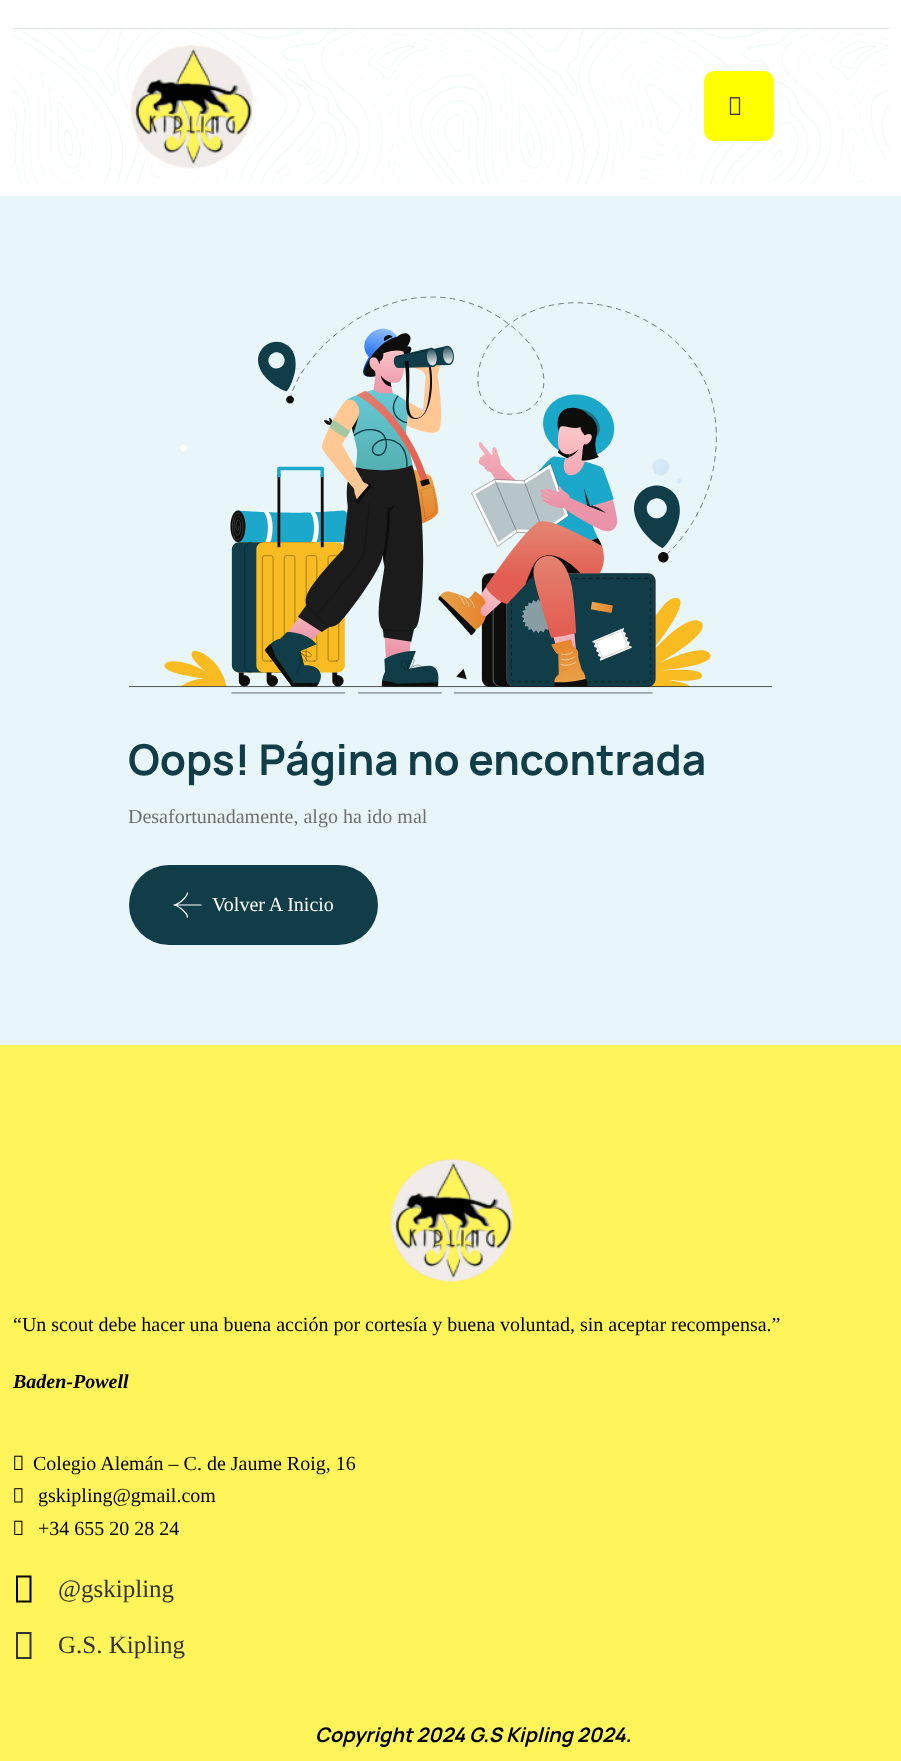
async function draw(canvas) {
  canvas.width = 901
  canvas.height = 1761
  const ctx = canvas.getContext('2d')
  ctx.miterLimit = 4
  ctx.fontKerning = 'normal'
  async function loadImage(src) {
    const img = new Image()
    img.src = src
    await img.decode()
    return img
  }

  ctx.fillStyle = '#fff'
  ctx.fillRect(0, 0, 901, 1761)
  ctx.fillStyle = '#e1e4e5'
  ctx.fillRect(13, 28, 876, 1)
  ctx.drawImage(await loadImage('image0.png'), 12, 29, 877, 155)
  ctx.drawImage(await loadImage('image1.png'), 130, 45, 124, 124)
  ctx.fillStyle = '#ff0'
  ctx.beginPath()
  ctx.roundRect(704, 71, 70, 70, 10)
  ctx.fill()
  ctx.drawImage(await loadImage('image2.png'), 729, 97, 12, 18)
  ctx.fillStyle = '#e9f6f9'
  ctx.fillRect(0, 196, 901, 849)
  ctx.drawImage(await loadImage('image3.png'), 129, 296, 644, 398)
  ctx.font = 'bold 42.5px Manrope'
  ctx.fillStyle = '#113d48'
  ctx.fillText('Oops! Página no encontrada', 128, 775)
  ctx.font = '20px Liberation Serif'
  ctx.fillStyle = '#6e7070'
  ctx.fillText('Desafortunadamente, algo ha ido mal', 128, 823)
  ctx.fillStyle = '#113d48'
  ctx.beginPath()
  ctx.roundRect(129, 865, 249, 80, 40)
  ctx.fill()
  ctx.beginPath()
  ctx.moveTo(187.5, 892.5)
  ctx.bezierCurveTo(187.5, 897, 178, 905, 173.5, 905)
  ctx.moveTo(187.5, 917.5)
  ctx.bezierCurveTo(187.5, 913, 178, 905, 173.5, 905)
  ctx.moveTo(173.5, 905)
  ctx.lineTo(201.5, 905)
  ctx.strokeStyle = '#fff'
  ctx.lineWidth = 1.2
  ctx.stroke()
  ctx.fillStyle = '#fff'
  ctx.fillText('Volver A Inicio', 212, 911)
  ctx.fillStyle = '#fff45a'
  ctx.fillRect(0, 1045, 901, 716)
  ctx.drawImage(await loadImage('image4.png'), 390, 1158, 124, 125)
  ctx.fillStyle = '#000'
  ctx.fillText('“Un scout debe hacer una buena acción por cortesía y buena voluntad, sin aceptar recompensa.”', 13, 1331)
  ctx.font = 'italic bold 20px Liberation Serif'
  ctx.fillText('Baden-Powell', 13, 1388)
  ctx.drawImage(await loadImage('image5.png'), 14, 1455, 9, 15)
  ctx.font = '20px Liberation Serif'
  ctx.fillText('Colegio Alemán – C. de Jaume Roig, 16', 33, 1470)
  ctx.drawImage(await loadImage('image6.png'), 14, 1488, 9, 15)
  ctx.fillText('gskipling@gmail.com', 38, 1502)
  ctx.drawImage(await loadImage('image5.png'), 14, 1520, 9, 15)
  ctx.fillText('+34 655 20 28 24', 38, 1535)
  ctx.beginPath()
  ctx.moveTo(16, 1602.5)
  ctx.lineTo(16, 1575.5)
  ctx.lineTo(31.5, 1575.5)
  ctx.lineTo(31.5, 1602.5)
  ctx.closePath()
  ctx.moveTo(18, 1600.5)
  ctx.lineTo(29.5, 1600.5)
  ctx.lineTo(29.5, 1577.5)
  ctx.lineTo(18, 1577.5)
  ctx.closePath()
  ctx.fill()
  ctx.font = '25px Liberation Serif'
  ctx.fillStyle = '#333'
  ctx.fillText('@gskipling', 58, 1597)
  ctx.beginPath()
  ctx.moveTo(16, 1659)
  ctx.lineTo(16, 1632)
  ctx.lineTo(31.5, 1632)
  ctx.lineTo(31.5, 1659)
  ctx.closePath()
  ctx.moveTo(18, 1657)
  ctx.lineTo(29.5, 1657)
  ctx.lineTo(29.5, 1634)
  ctx.lineTo(18, 1634)
  ctx.closePath()
  ctx.fill()
  ctx.fillText('G.S. Kipling', 58, 1653)
  ctx.font = 'italic bold 20px Manrope'
  ctx.fillStyle = '#000'
  ctx.fillText('Copyright 2024 G.S Kipling 2024.', 315, 1742)
}

draw(document.querySelector('canvas'))
